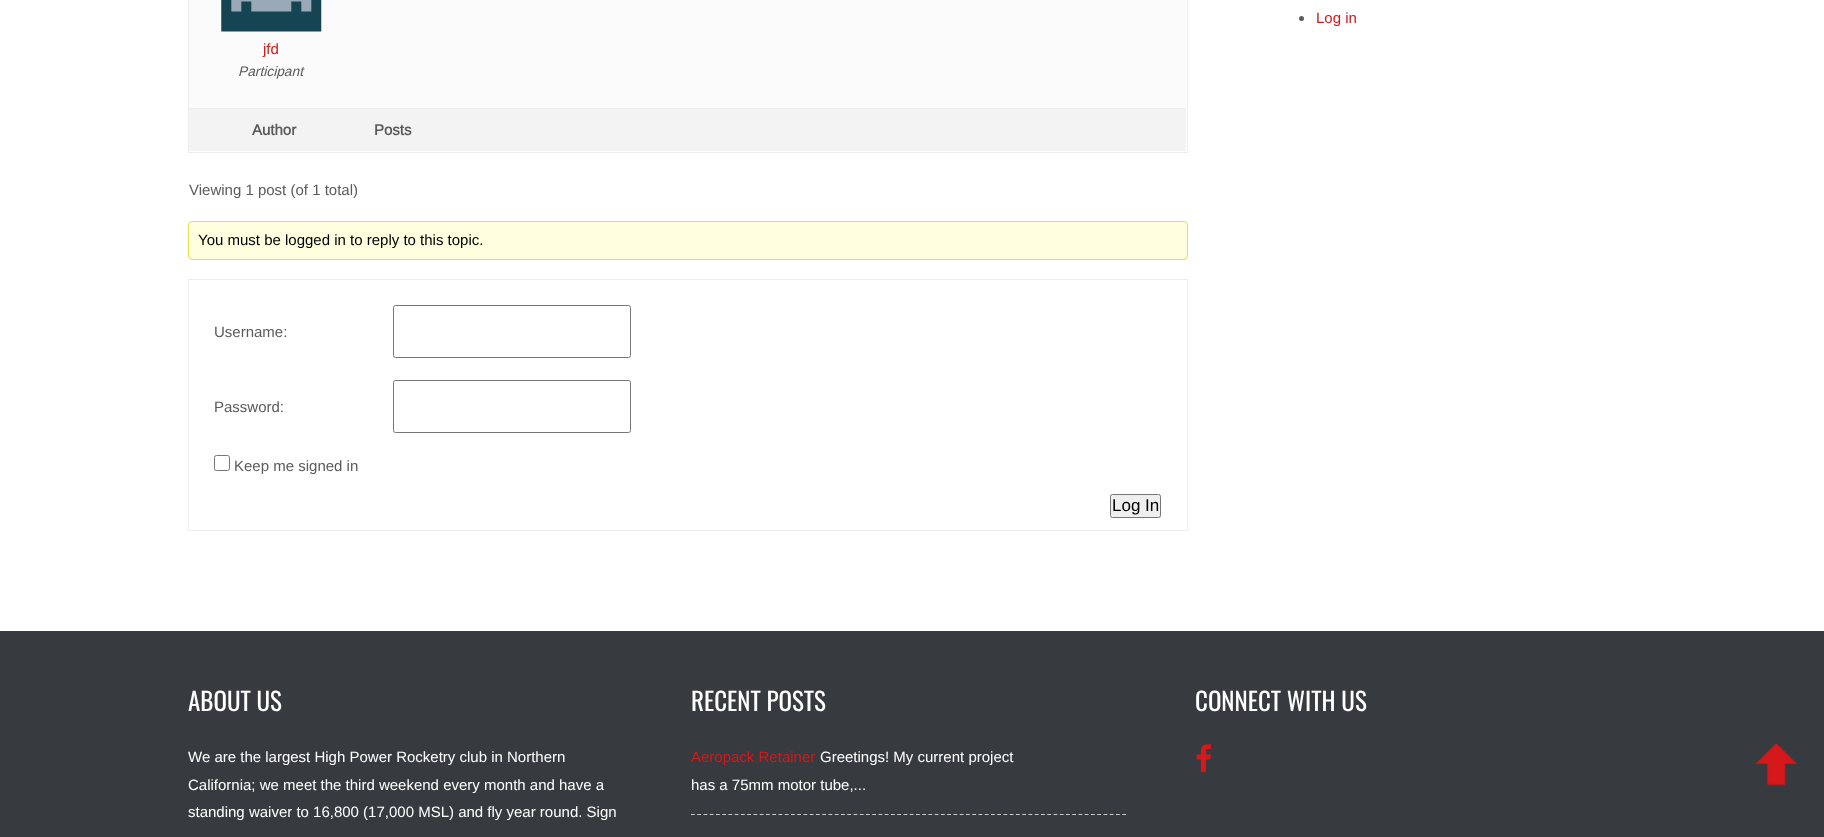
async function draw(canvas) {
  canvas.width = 1824
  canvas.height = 837
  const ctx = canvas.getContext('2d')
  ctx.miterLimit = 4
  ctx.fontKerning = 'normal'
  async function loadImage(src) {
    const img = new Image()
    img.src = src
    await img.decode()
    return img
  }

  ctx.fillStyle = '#fff'
  ctx.fillRect(0, 0, 1824, 837)
  ctx.fillStyle = '#5b5b5b'
  ctx.beginPath()
  ctx.arc(1301.5, 18.5, 2.5, 0, 2 * Math.PI)
  ctx.fill()
  ctx.font = '15px Arimo'
  ctx.fillStyle = '#d6181a'
  ctx.fillText('Log in', 1316, 23)
  ctx.strokeStyle = '#eee'
  ctx.strokeRect(188.5, -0.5, 999, 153)
  ctx.fillStyle = '#fbfbfb'
  ctx.fillRect(189, 0, 997, 108)
  ctx.drawImage(await loadImage('image0.png'), 221, 0, 101, 32)
  ctx.fillStyle = '#d6181a'
  ctx.fillText('jfd', 263, 54)
  ctx.font = 'italic 13.75px Arimo'
  ctx.fillStyle = '#5b5b5b'
  ctx.fillText('Participant', 238, 76)
  ctx.fillStyle = '#f3f3f3'
  ctx.fillRect(189, 109, 997, 42)
  ctx.fillStyle = '#eee'
  ctx.fillRect(189, 108, 997, 1)
  ctx.font = 'bold 15px Arimo'
  ctx.fillStyle = '#5b5b5b'
  ctx.fillText('Author', 252, 135)
  ctx.fillText('Posts', 374, 135)
  ctx.font = '15px Arimo'
  ctx.fillText('Viewing 1 post (of 1 total)', 189, 195)
  ctx.fillStyle = '#ffffe0'
  ctx.beginPath()
  ctx.roundRect(188.5, 221.5, 999, 38, 3.5)
  ctx.fill()
  ctx.strokeStyle = '#e6db55'
  ctx.stroke()
  ctx.fillStyle = '#000'
  ctx.fillText('You must be logged in to reply to this topic.', 198, 245)
  ctx.strokeStyle = '#eee'
  ctx.strokeRect(188.5, 279.5, 999, 251)
  ctx.fillStyle = '#5b5b5b'
  ctx.fillText('Username:', 214, 337)
  ctx.beginPath()
  ctx.roundRect(393.5, 305.5, 237, 52, 2)
  ctx.strokeStyle = '#767676'
  ctx.stroke()
  ctx.fillText('Password:', 214, 412)
  ctx.beginPath()
  ctx.roundRect(393.5, 380.5, 237, 52, 2)
  ctx.stroke()
  ctx.beginPath()
  ctx.roundRect(214.5, 455.5, 15, 15, 2)
  ctx.stroke()
  ctx.fillText('Keep me signed in', 234, 471)
  ctx.fillStyle = '#efefef'
  ctx.beginPath()
  ctx.roundRect(1110.5, 494.5, 50, 23, 2)
  ctx.fill()
  ctx.stroke()
  ctx.font = '17px Liberation Sans'
  ctx.fillStyle = '#000'
  ctx.fillText('Log In', 1112, 511)
  ctx.fillStyle = '#373a3f'
  ctx.fillRect(0, 631, 1824, 206)
  ctx.font = '25px Oswald'
  ctx.fillStyle = '#fff'
  ctx.fillText('ABOUT US', 188, 711)
  ctx.font = '15px Arimo'
  ctx.fillText('We are the largest High Power Rocketry club in Northern', 188, 762)
  ctx.fillText('California; we meet the third weekend every month and have a', 188, 790)
  ctx.fillText('standing waiver to 16,800 (17,000 MSL) and fly year round. Sign', 188, 817)
  ctx.font = '25px Oswald'
  ctx.fillText('RECENT POSTS', 691, 711)
  ctx.beginPath()
  ctx.moveTo(691, 814.5)
  ctx.lineTo(1126, 814.5)
  ctx.strokeStyle = '#ccc'
  ctx.lineWidth = 1.2
  ctx.setLineDash([3.75, 2.5])
  ctx.stroke()
  ctx.font = '15px Arimo'
  ctx.fillStyle = '#d6181a'
  ctx.fillText('Aeropack Retainer', 691, 762)
  ctx.fillStyle = '#fff'
  ctx.fillText('Greetings! My current project', 820, 762)
  ctx.fillText('has a 75mm motor tube,...', 691, 790)
  ctx.font = '25px Oswald'
  ctx.fillText('CONNECT WITH US', 1195, 711)
  ctx.drawImage(await loadImage('image1.png'), 1196, 744, 16, 29)
  ctx.drawImage(await loadImage('image2.png'), 1756, 743, 42, 43)
}

draw(document.querySelector('canvas'))
